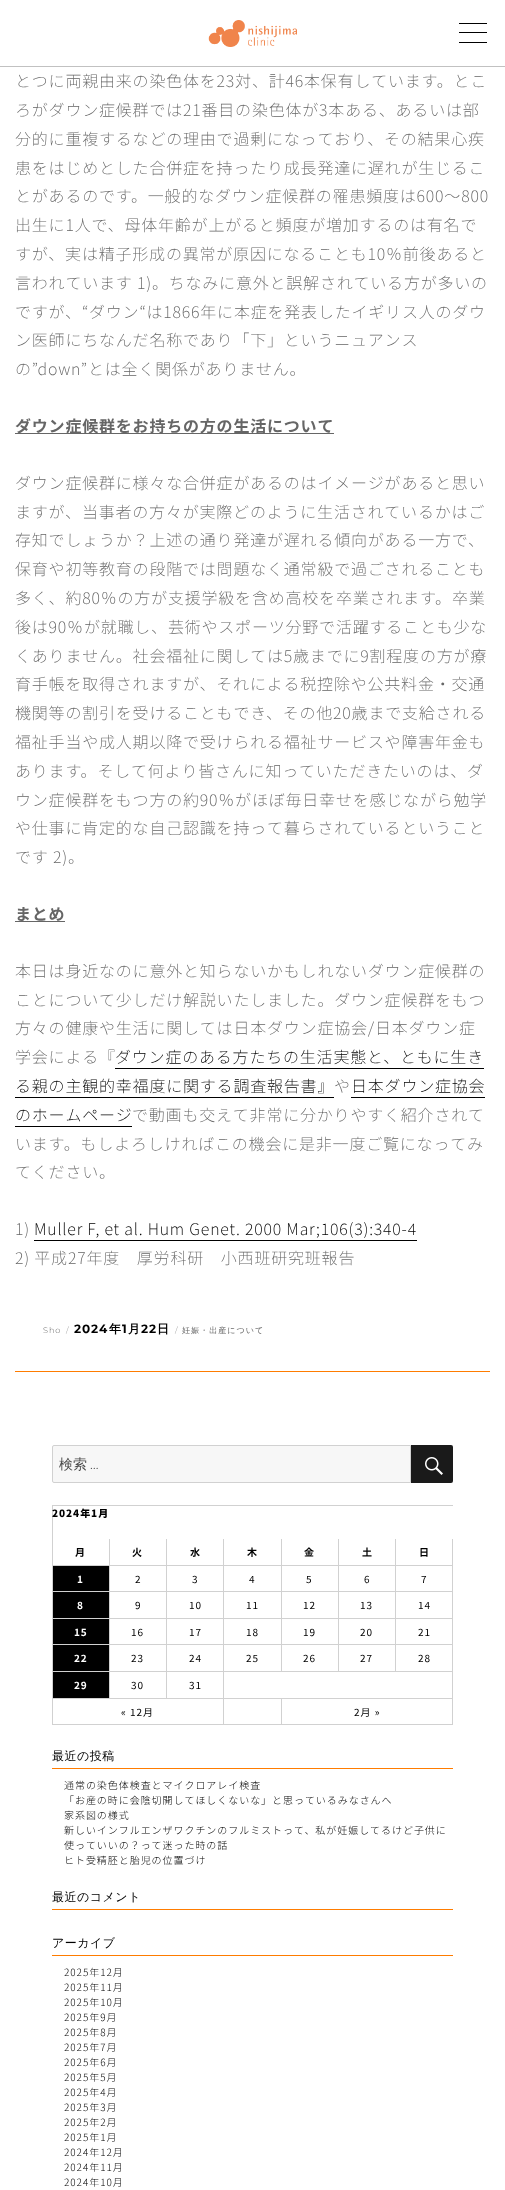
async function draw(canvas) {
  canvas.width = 505
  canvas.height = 2190
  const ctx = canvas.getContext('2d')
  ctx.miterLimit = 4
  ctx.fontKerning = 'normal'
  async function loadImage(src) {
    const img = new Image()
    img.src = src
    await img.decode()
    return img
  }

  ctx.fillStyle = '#fff'
  ctx.fillRect(0, 0, 505, 2190)
  ctx.fillStyle = '#c1c1c1'
  ctx.fillRect(0, 66, 505, 1)
  ctx.drawImage(await loadImage('image0.png'), 208, 20, 89, 27)
  ctx.fillStyle = '#000'
  ctx.fillRect(459, 23, 28, 1)
  ctx.fillRect(459, 32, 28, 1)
  ctx.fillRect(459, 42, 28, 1)
  ctx.letterSpacing = '0.8px'
  ctx.font = '200 16px Noto Sans JP'
  ctx.fillStyle = '#666'
  ctx.fillText('とつに両親由来の染色体を23対、計46本保有しています。とこ', 15, 87)
  ctx.fillText('ろがダウン症候群では21番目の染色体が3本ある、あるいは部', 15, 116)
  ctx.fillText('分的に重複するなどの理由で過剰になっており、その結果心疾', 15, 145)
  ctx.fillText('患をはじめとした合併症を持ったり成長発達に遅れが生じるこ', 15, 174)
  ctx.fillText('とがあるのです。一般的なダウン症候群の罹患頻度は600〜800', 15, 202)
  ctx.fillText('出生に1人で、母体年齢が上がると頻度が増加するのは有名で', 15, 231)
  ctx.fillText('すが、実は精子形成の異常が原因になることも10％前後あると', 15, 260)
  ctx.fillText('言われています 1)。ちなみに意外と誤解されている方が多いの', 15, 289)
  ctx.fillText('ですが、“ダウン“は1866年に本症を発表したイギリス人のダウ', 15, 318)
  ctx.fillText('ン医師にちなんだ名称であり「下」というニュアンス', 15, 346)
  ctx.fillText('の”down”とは全く関係がありません。', 15, 375)
  ctx.fillRect(15, 433, 319, 1)
  ctx.font = 'bold 16px Noto Sans JP'
  ctx.fillText('ダウン症候群をお持ちの方の生活について', 15, 432)
  ctx.font = '200 16px Noto Sans JP'
  ctx.fillText('ダウン症候群に様々な合併症があるのはイメージがあると思い', 15, 489)
  ctx.fillText('ますが、当事者の方々が実際どのように生活されているかはご', 15, 518)
  ctx.fillText('存知でしょうか？上述の通り発達が遅れる傾向がある一方で、', 15, 546)
  ctx.fillText('保育や初等教育の段階では問題なく通常級で過ごされることも', 15, 575)
  ctx.fillText('多く、約80％の方が支援学級を含め高校を卒業されます。卒業', 15, 604)
  ctx.fillText('後は90％が就職し、芸術やスポーツ分野で活躍することも少な', 15, 633)
  ctx.fillText('くありません。社会福祉に関しては5歳までに9割程度の方が療', 15, 662)
  ctx.fillText('育手帳を取得されますが、それによる税控除や公共料金・交通', 15, 690)
  ctx.fillText('機関等の割引を受けることもでき、その他20歳まで支給される', 15, 719)
  ctx.fillText('福祉手当や成人期以降で受けられる福祉サービスや障害年金も', 15, 748)
  ctx.fillText('あります。そして何より皆さんに知っていただきたいのは、ダ', 15, 777)
  ctx.fillText('ウン症候群をもつ方の約90％がほぼ毎日幸せを感じながら勉学', 15, 806)
  ctx.fillText('や仕事に肯定的な自己認識を持って暮らされているということ', 15, 834)
  ctx.fillText('です 2)。', 15, 863)
  ctx.font = 'bold 16px Noto Sans JP'
  ctx.fillText('まとめ', 15, 920)
  ctx.fillRect(15, 921, 50, 1)
  ctx.font = '200 16px Noto Sans JP'
  ctx.fillText('本日は身近なのに意外と知らないかもしれないダウン症候群の', 15, 977)
  ctx.fillText('ことについて少しだけ解説いたしました。ダウン症候群をもつ', 15, 1006)
  ctx.fillText('方々の健康や生活に関しては日本ダウン症協会/日本ダウン症', 15, 1034)
  ctx.fillText('学会による『', 15, 1063)
  ctx.fillStyle = '#000'
  ctx.fillText('ダウン症のある方たちの生活実態と、ともに生き', 115, 1063)
  ctx.fillRect(115, 1068, 369, 1)
  ctx.fillText('る親の主観的幸福度に関する調査報告書』', 15, 1092)
  ctx.fillRect(15, 1097, 319, 1)
  ctx.fillStyle = '#666'
  ctx.fillText('や', 334, 1092)
  ctx.fillStyle = '#000'
  ctx.fillText('日本ダウン症協会', 351, 1092)
  ctx.fillRect(351, 1097, 134, 1)
  ctx.fillText('のホームページ', 15, 1121)
  ctx.fillRect(15, 1126, 117, 1)
  ctx.fillStyle = '#666'
  ctx.fillText('で動画も交えて非常に分かりやすく紹介されて', 132, 1121)
  ctx.fillText('います。もしよろしければこの機会に是非一度ご覧になってみ', 15, 1150)
  ctx.fillText('てください。', 15, 1178)
  ctx.fillText('1)', 15, 1235)
  ctx.fillStyle = '#000'
  ctx.fillText('Muller F, et al. Hum Genet. 2000 Mar;106(3):340-4', 34, 1235)
  ctx.fillRect(34, 1240, 383, 1)
  ctx.fillStyle = '#666'
  ctx.fillText('2) 平成27年度　厚労科研　小西班研究班報告', 15, 1264)
  ctx.fillStyle = '#ff7c00'
  ctx.fillRect(15, 1371, 475, 1)
  ctx.letterSpacing = '0.95px'
  ctx.font = '300 8.1px Montserrat'
  ctx.fillStyle = '#666'
  ctx.fillText('Sho', 43, 1333)
  ctx.fillStyle = '#959595'
  ctx.fillText('/', 66, 1333)
  ctx.font = 'bold 12px Montserrat'
  ctx.fillStyle = '#000'
  ctx.fillText('2024', 74, 1333)
  ctx.font = 'bold 12px WenQuanYi Zen Hei'
  ctx.fillText('年', 109, 1333)
  ctx.font = 'bold 12px Montserrat'
  ctx.fillText('1', 122, 1333)
  ctx.font = 'bold 12px WenQuanYi Zen Hei'
  ctx.fillText('月', 128, 1333)
  ctx.font = 'bold 12px Montserrat'
  ctx.fillText('22', 141, 1333)
  ctx.font = 'bold 12px WenQuanYi Zen Hei'
  ctx.fillText('日', 157, 1333)
  ctx.font = '300 8.1px Montserrat'
  ctx.fillStyle = '#959595'
  ctx.fillText('/', 175, 1333)
  ctx.font = '500 8.1px WenQuanYi Zen Hei'
  ctx.fillStyle = '#666'
  ctx.fillText('妊娠・出産について', 182, 1333)
  ctx.fillStyle = '#f7f7f7'
  ctx.beginPath()
  ctx.roundRect(52.5, 1445.5, 358, 37, [1.5, 0, 0, 1.5])
  ctx.fill()
  ctx.strokeStyle = '#d1d1d1'
  ctx.stroke()
  ctx.letterSpacing = '0px'
  ctx.font = '500 14px WenQuanYi Zen Hei'
  ctx.fillStyle = '#4c4c4c'
  ctx.fillText('検索', 59, 1469)
  ctx.font = '300 14px Montserrat'
  ctx.fillText('…', 90, 1469)
  ctx.fillStyle = '#1a1a1a'
  ctx.beginPath()
  ctx.roundRect(411, 1445, 42, 38, [0, 2, 2, 0])
  ctx.fill()
  ctx.drawImage(await loadImage('image1.png'), 425, 1457, 18, 18)
  ctx.fillStyle = '#d1d1d1'
  ctx.fillRect(52, 1505, 401, 1)
  ctx.fillRect(52, 1505, 1, 220)
  ctx.letterSpacing = '0.95px'
  ctx.font = '900 10px Noto Sans JP'
  ctx.fillStyle = '#000'
  ctx.fillText('2024年1月', 52, 1517)
  ctx.fillStyle = '#d1d1d1'
  ctx.fillRect(109, 1539, 1, 160)
  ctx.fillRect(53, 1565, 57, 1)
  ctx.font = 'bold 10px Noto Sans JP'
  ctx.fillStyle = '#000'
  ctx.fillText('月', 75, 1556)
  ctx.fillStyle = '#d1d1d1'
  ctx.fillRect(166, 1539, 1, 160)
  ctx.fillRect(110, 1565, 57, 1)
  ctx.fillStyle = '#000'
  ctx.fillText('火', 132, 1556)
  ctx.fillStyle = '#d1d1d1'
  ctx.fillRect(223, 1539, 1, 133)
  ctx.fillRect(167, 1565, 57, 1)
  ctx.fillStyle = '#000'
  ctx.fillText('水', 190, 1556)
  ctx.fillStyle = '#d1d1d1'
  ctx.fillRect(281, 1539, 1, 133)
  ctx.fillRect(224, 1565, 58, 1)
  ctx.fillStyle = '#000'
  ctx.fillText('木', 247, 1556)
  ctx.fillStyle = '#d1d1d1'
  ctx.fillRect(338, 1539, 1, 133)
  ctx.fillRect(282, 1565, 57, 1)
  ctx.fillStyle = '#000'
  ctx.fillText('金', 304, 1556)
  ctx.fillStyle = '#d1d1d1'
  ctx.fillRect(395, 1539, 1, 133)
  ctx.fillRect(339, 1565, 57, 1)
  ctx.fillStyle = '#000'
  ctx.fillText('土', 362, 1556)
  ctx.fillStyle = '#d1d1d1'
  ctx.fillRect(452, 1539, 1, 133)
  ctx.fillRect(396, 1565, 57, 1)
  ctx.fillStyle = '#000'
  ctx.fillText('日', 419, 1556)
  ctx.fillStyle = '#d1d1d1'
  ctx.fillRect(53, 1591, 400, 1)
  ctx.fillStyle = '#000'
  ctx.fillRect(53, 1566, 56, 25)
  ctx.fillStyle = '#fff'
  ctx.fillText('1', 77, 1583)
  ctx.font = '10px Noto Sans JP'
  ctx.fillStyle = '#000'
  ctx.fillText('2', 135, 1583)
  ctx.fillText('3', 192, 1583)
  ctx.fillText('4', 249, 1583)
  ctx.fillText('5', 306, 1583)
  ctx.fillText('6', 364, 1583)
  ctx.fillText('7', 421, 1583)
  ctx.fillStyle = '#d1d1d1'
  ctx.fillRect(53, 1618, 400, 1)
  ctx.fillStyle = '#000'
  ctx.fillRect(53, 1592, 56, 26)
  ctx.font = 'bold 10px Noto Sans JP'
  ctx.fillStyle = '#fff'
  ctx.fillText('8', 77, 1609)
  ctx.font = '10px Noto Sans JP'
  ctx.fillStyle = '#000'
  ctx.fillText('9', 135, 1609)
  ctx.fillText('10', 189, 1609)
  ctx.fillText('11', 246, 1609)
  ctx.fillText('12', 303, 1609)
  ctx.fillText('13', 360, 1609)
  ctx.fillText('14', 418, 1609)
  ctx.fillStyle = '#d1d1d1'
  ctx.fillRect(53, 1644, 400, 1)
  ctx.fillStyle = '#000'
  ctx.fillRect(53, 1619, 56, 25)
  ctx.font = 'bold 10px Noto Sans JP'
  ctx.fillStyle = '#fff'
  ctx.fillText('15', 74, 1636)
  ctx.font = '10px Noto Sans JP'
  ctx.fillStyle = '#000'
  ctx.fillText('16', 131, 1636)
  ctx.fillText('17', 189, 1636)
  ctx.fillText('18', 246, 1636)
  ctx.fillText('19', 303, 1636)
  ctx.fillText('20', 360, 1636)
  ctx.fillText('21', 418, 1636)
  ctx.fillStyle = '#d1d1d1'
  ctx.fillRect(53, 1671, 400, 1)
  ctx.fillStyle = '#000'
  ctx.fillRect(53, 1645, 56, 26)
  ctx.font = 'bold 10px Noto Sans JP'
  ctx.fillStyle = '#fff'
  ctx.fillText('22', 74, 1662)
  ctx.font = '10px Noto Sans JP'
  ctx.fillStyle = '#000'
  ctx.fillText('23', 131, 1662)
  ctx.fillText('24', 189, 1662)
  ctx.fillText('25', 246, 1662)
  ctx.fillText('26', 303, 1662)
  ctx.fillText('27', 360, 1662)
  ctx.fillText('28', 418, 1662)
  ctx.fillStyle = '#d1d1d1'
  ctx.fillRect(223, 1672, 1, 53)
  ctx.fillRect(452, 1672, 1, 53)
  ctx.fillRect(53, 1698, 400, 1)
  ctx.fillStyle = '#000'
  ctx.fillRect(53, 1672, 56, 26)
  ctx.font = 'bold 10px Noto Sans JP'
  ctx.fillStyle = '#fff'
  ctx.fillText('29', 74, 1689)
  ctx.font = '10px Noto Sans JP'
  ctx.fillStyle = '#000'
  ctx.fillText('30', 131, 1689)
  ctx.fillText('31', 189, 1689)
  ctx.fillStyle = '#d1d1d1'
  ctx.fillRect(53, 1724, 171, 1)
  ctx.fillStyle = '#000'
  ctx.fillText('« 12月', 121, 1716)
  ctx.fillStyle = '#d1d1d1'
  ctx.fillRect(281, 1699, 1, 26)
  ctx.fillRect(224, 1724, 58, 1)
  ctx.fillRect(282, 1724, 171, 1)
  ctx.fillStyle = '#000'
  ctx.fillText('2月 »', 354, 1716)
  ctx.fillStyle = '#ff7c00'
  ctx.fillRect(52, 1768, 401, 1)
  ctx.letterSpacing = '0.5px'
  ctx.font = '500 12px WenQuanYi Zen Hei'
  ctx.fillStyle = '#000'
  ctx.fillText('最近の投稿', 52, 1760)
  ctx.letterSpacing = '0.95px'
  ctx.font = '300 10px Noto Sans JP'
  ctx.fillText('通常の染色体検査とマイクロアレイ検査', 64, 1789)
  ctx.fillText('「お産の時に会陰切開してほしくないな」と思っているみなさんへ', 64, 1804)
  ctx.fillText('家系図の様式', 64, 1819)
  ctx.fillText('新しいインフルエンザワクチンのフルミストって、私が妊娠してるけど子供に', 64, 1834)
  ctx.fillText('使っていいの？って迷った時の話', 64, 1849)
  ctx.fillText('ヒト受精胚と胎児の位置づけ', 64, 1864)
  ctx.fillStyle = '#ff7c00'
  ctx.fillRect(52, 1909, 401, 1)
  ctx.letterSpacing = '0.5px'
  ctx.font = '500 12px WenQuanYi Zen Hei'
  ctx.fillStyle = '#000'
  ctx.fillText('最近のコメント', 52, 1901)
  ctx.fillStyle = '#ff7c00'
  ctx.fillRect(52, 1955, 401, 1)
  ctx.fillStyle = '#000'
  ctx.fillText('アーカイブ', 52, 1947)
  ctx.letterSpacing = '0.95px'
  ctx.font = '300 10px Noto Sans JP'
  ctx.fillText('2025年12月', 64, 1976)
  ctx.fillText('2025年11月', 64, 1991)
  ctx.fillText('2025年10月', 64, 2006)
  ctx.fillText('2025年9月', 64, 2021)
  ctx.fillText('2025年8月', 64, 2036)
  ctx.fillText('2025年7月', 64, 2051)
  ctx.fillText('2025年6月', 64, 2066)
  ctx.fillText('2025年5月', 64, 2081)
  ctx.fillText('2025年4月', 64, 2096)
  ctx.fillText('2025年3月', 64, 2111)
  ctx.fillText('2025年2月', 64, 2126)
  ctx.fillText('2025年1月', 64, 2141)
  ctx.fillText('2024年12月', 64, 2156)
  ctx.fillText('2024年11月', 64, 2171)
  ctx.fillText('2024年10月', 64, 2186)
}

draw(document.querySelector('canvas'))
